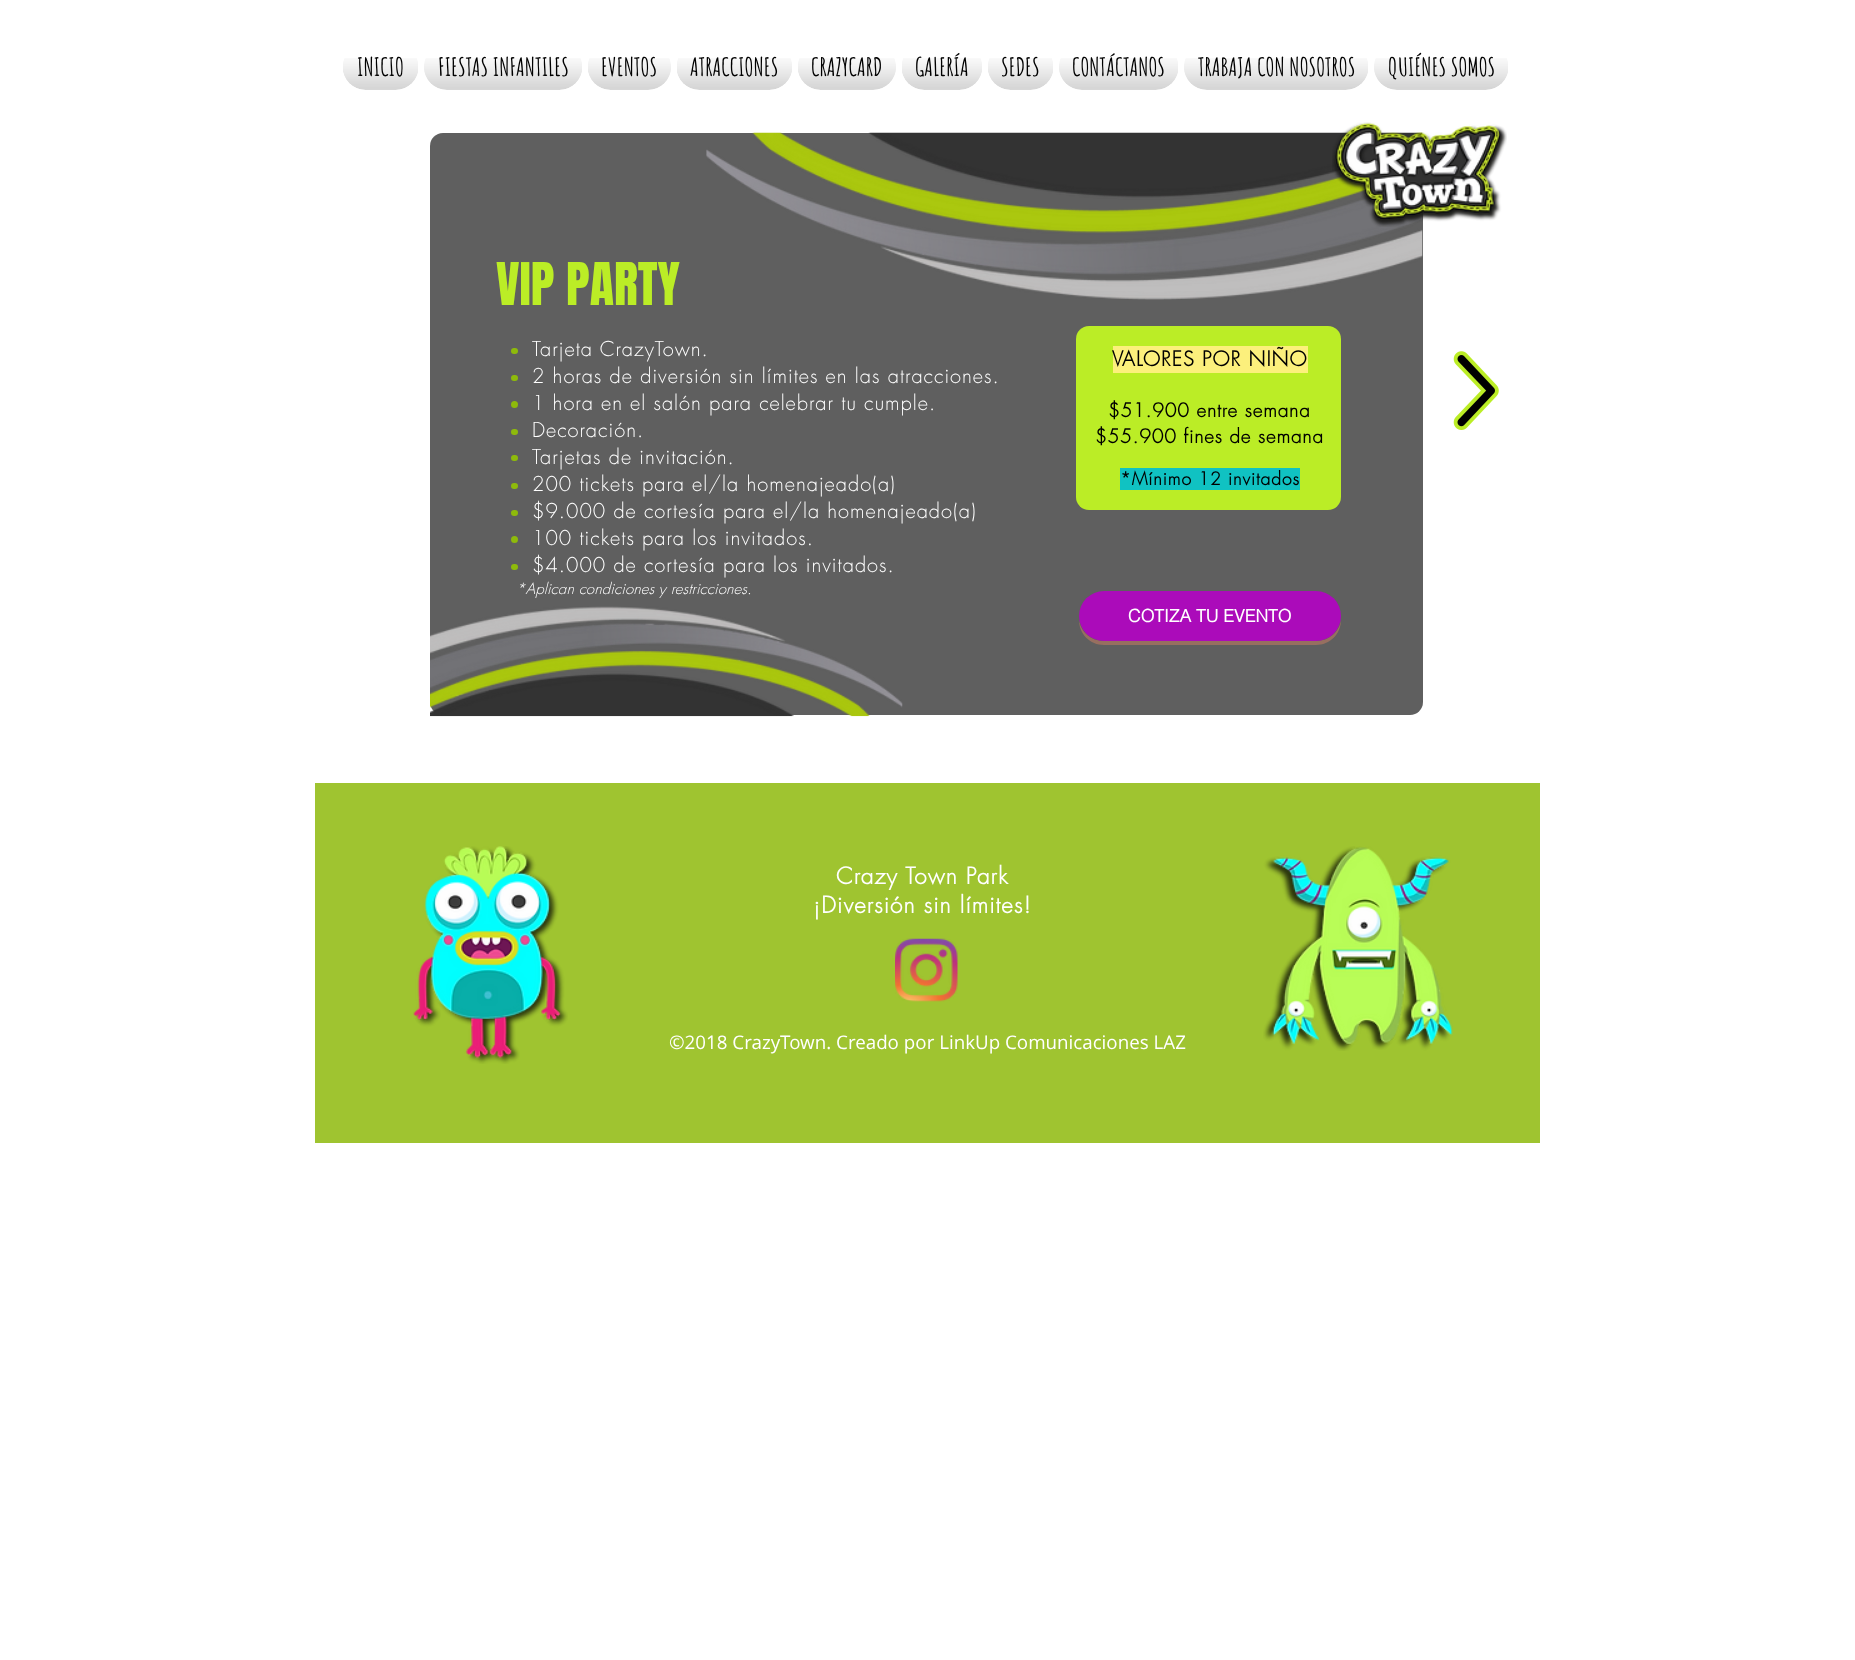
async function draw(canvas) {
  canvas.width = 1855
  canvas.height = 1660
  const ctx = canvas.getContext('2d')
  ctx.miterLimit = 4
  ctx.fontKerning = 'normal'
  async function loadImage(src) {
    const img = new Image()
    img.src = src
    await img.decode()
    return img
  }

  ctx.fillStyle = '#fff'
  ctx.fillRect(0, 0, 1855, 1660)
  ctx.drawImage(await loadImage('image0.png'), 343, 58, 75, 32)
  ctx.font = 'bold 25px Amatic SC'
  ctx.fillStyle = '#000'
  ctx.fillText('INICIO', 357, 76)
  ctx.drawImage(await loadImage('image1.png'), 424, 58, 158, 32)
  ctx.fillText('FIESTAS INFANTILES', 438, 76)
  ctx.drawImage(await loadImage('image2.png'), 588, 58, 83, 32)
  ctx.fillText('EVENTOS', 601, 76)
  ctx.drawImage(await loadImage('image3.png'), 677, 58, 115, 32)
  ctx.fillText('ATRACCIONES', 690, 76)
  ctx.drawImage(await loadImage('image4.png'), 798, 58, 98, 32)
  ctx.fillText('CRAZYCARD', 811, 76)
  ctx.drawImage(await loadImage('image5.png'), 902, 58, 80, 32)
  ctx.fillText('GALERÍA', 915, 76)
  ctx.drawImage(await loadImage('image6.png'), 988, 58, 65, 32)
  ctx.fillText('SEDES', 1001, 76)
  ctx.drawImage(await loadImage('image7.png'), 1059, 58, 119, 32)
  ctx.fillText('CONTÁCTANOS', 1072, 76)
  ctx.drawImage(await loadImage('image8.png'), 1184, 58, 184, 32)
  ctx.fillText('TRABAJA CON NOSOTROS', 1198, 76)
  ctx.drawImage(await loadImage('image9.png'), 1374, 58, 134, 32)
  ctx.fillText('QUIÉNES SOMOS', 1388, 76)
  ctx.fillStyle = '#5f5f5f'
  ctx.beginPath()
  ctx.roundRect(430, 133, 993, 582, 13)
  ctx.fill()
  ctx.drawImage(await loadImage('image11.png'), 706, 132, 717, 168)
  ctx.drawImage(await loadImage('image10.png'), 1332, 122, 175, 105)
  ctx.font = '50px Anton'
  ctx.fillStyle = '#bbed26'
  ctx.fillText('VIP PARTY', 496, 305)
  ctx.fillStyle = '#8eba0b'
  ctx.beginPath()
  ctx.roundRect(511, 348, 7, 6, 3)
  ctx.fill()
  ctx.letterSpacing = '1px'
  ctx.font = '300 20px futura'
  ctx.fillStyle = '#fff'
  ctx.fillText('Tarjeta CrazyTown.', 532, 356)
  ctx.fillStyle = '#8eba0b'
  ctx.beginPath()
  ctx.roundRect(511, 375, 7, 6, 3)
  ctx.fill()
  ctx.fillStyle = '#fff'
  ctx.fillText('2 horas de diversión sin límites en las atracciones.', 532, 383)
  ctx.fillStyle = '#8eba0b'
  ctx.beginPath()
  ctx.arc(514.5, 404.5, 3.5, 0, 2 * Math.PI)
  ctx.fill()
  ctx.fillStyle = '#fff'
  ctx.fillText('1 hora en el salón para celebrar tu cumple.', 532, 410)
  ctx.fillStyle = '#8eba0b'
  ctx.beginPath()
  ctx.roundRect(511, 429, 7, 6, 3)
  ctx.fill()
  ctx.fillStyle = '#fff'
  ctx.fillText('Decoración.', 532, 437)
  ctx.fillStyle = '#8eba0b'
  ctx.beginPath()
  ctx.roundRect(511, 455, 7, 6, 3)
  ctx.fill()
  ctx.fillStyle = '#fff'
  ctx.fillText('Tarjetas de invitación.', 532, 464)
  ctx.fillStyle = '#8eba0b'
  ctx.beginPath()
  ctx.roundRect(511, 483, 7, 6, 3)
  ctx.fill()
  ctx.fillStyle = '#fff'
  ctx.fillText('200 tickets para el/la homenajeado(a)', 532, 491)
  ctx.fillStyle = '#8eba0b'
  ctx.beginPath()
  ctx.roundRect(511, 510, 7, 6, 3)
  ctx.fill()
  ctx.fillStyle = '#fff'
  ctx.fillText('$9.000 de cortesía para el/la homenajeado(a)', 532, 518)
  ctx.fillStyle = '#8eba0b'
  ctx.beginPath()
  ctx.arc(514.5, 539.5, 3.5, 0, 2 * Math.PI)
  ctx.fill()
  ctx.fillStyle = '#fff'
  ctx.fillText('100 tickets para los invitados.', 532, 545)
  ctx.fillStyle = '#8eba0b'
  ctx.beginPath()
  ctx.roundRect(511, 564, 7, 6, 3)
  ctx.fill()
  ctx.fillStyle = '#fff'
  ctx.fillText('$4.000 de cortesía para los invitados.', 532, 572)
  ctx.fillStyle = '#bbed26'
  ctx.beginPath()
  ctx.roundRect(1076, 326, 265, 184, 13)
  ctx.fill()
  ctx.fillStyle = '#fcf07c'
  ctx.fillRect(1113, 346, 195, 27)
  ctx.font = 'bold 20px futura'
  ctx.fillStyle = '#000'
  ctx.fillText('VALORES POR NIÑO', 1112, 366)
  ctx.letterSpacing = '0.9px'
  ctx.font = 'bold 18.75px futura'
  ctx.fillText('$51.900 entre semana', 1108, 417)
  ctx.fillText('$55.900 fines de semana', 1095, 443)
  ctx.fillStyle = '#10c2c2'
  ctx.fillRect(1120, 468, 180, 22)
  ctx.font = 'bold 17.5px futura'
  ctx.fillStyle = '#000'
  ctx.fillText('*Mínimo 12 invitados', 1120, 485)
  ctx.letterSpacing = '0.15px'
  ctx.font = 'italic 300 15px futura'
  ctx.fillStyle = '#fff'
  ctx.fillText('*Aplican condiciones y restricciones.', 516, 594)
  ctx.fillStyle = '#976f60'
  ctx.beginPath()
  ctx.moveTo(1079, 620)
  ctx.bezierCurveTo(1079, 634, 1090, 645, 1104, 645)
  ctx.lineTo(1316, 645)
  ctx.bezierCurveTo(1330, 645, 1341, 634, 1341, 620)
  ctx.bezierCurveTo(1339, 632, 1329, 641, 1316, 641)
  ctx.lineTo(1104, 641)
  ctx.bezierCurveTo(1091, 641, 1081, 632, 1079, 620)
  ctx.closePath()
  ctx.fill()
  ctx.fillStyle = '#ab0bba'
  ctx.beginPath()
  ctx.roundRect(1079, 591, 262, 50, 25)
  ctx.fill()
  ctx.letterSpacing = '0px'
  ctx.font = 'bold 17.5px helvetica'
  ctx.fillStyle = '#fff'
  ctx.fillText('COTIZA TU EVENTO', 1128, 622)
  ctx.drawImage(await loadImage('image12.png'), 1453, 351, 46, 79)
  ctx.drawImage(await loadImage('image13.png'), 430, 606, 473, 111)
  ctx.fillStyle = '#9fc430'
  ctx.fillRect(315, 783, 1225, 360)
  ctx.drawImage(await loadImage('image14.png'), 413, 846, 155, 218)
  ctx.letterSpacing = '1.1px'
  ctx.font = 'bold 22.5px futura'
  ctx.fillStyle = '#fff'
  ctx.fillText('Crazy Town Park', 836, 884)
  ctx.fillText('¡Diversión sin límites!', 813, 913)
  ctx.drawImage(await loadImage('image15.png'), 1263, 846, 190, 205)
  ctx.drawImage(await loadImage('image16.png'), 895, 938, 63, 64)
  ctx.letterSpacing = '0px'
  ctx.font = '18.75px Open Sans'
  ctx.fillText('©2018 CrazyTown. Creado por LinkUp Comunicaciones LAZ', 669, 1049)
}

draw(document.querySelector('canvas'))
